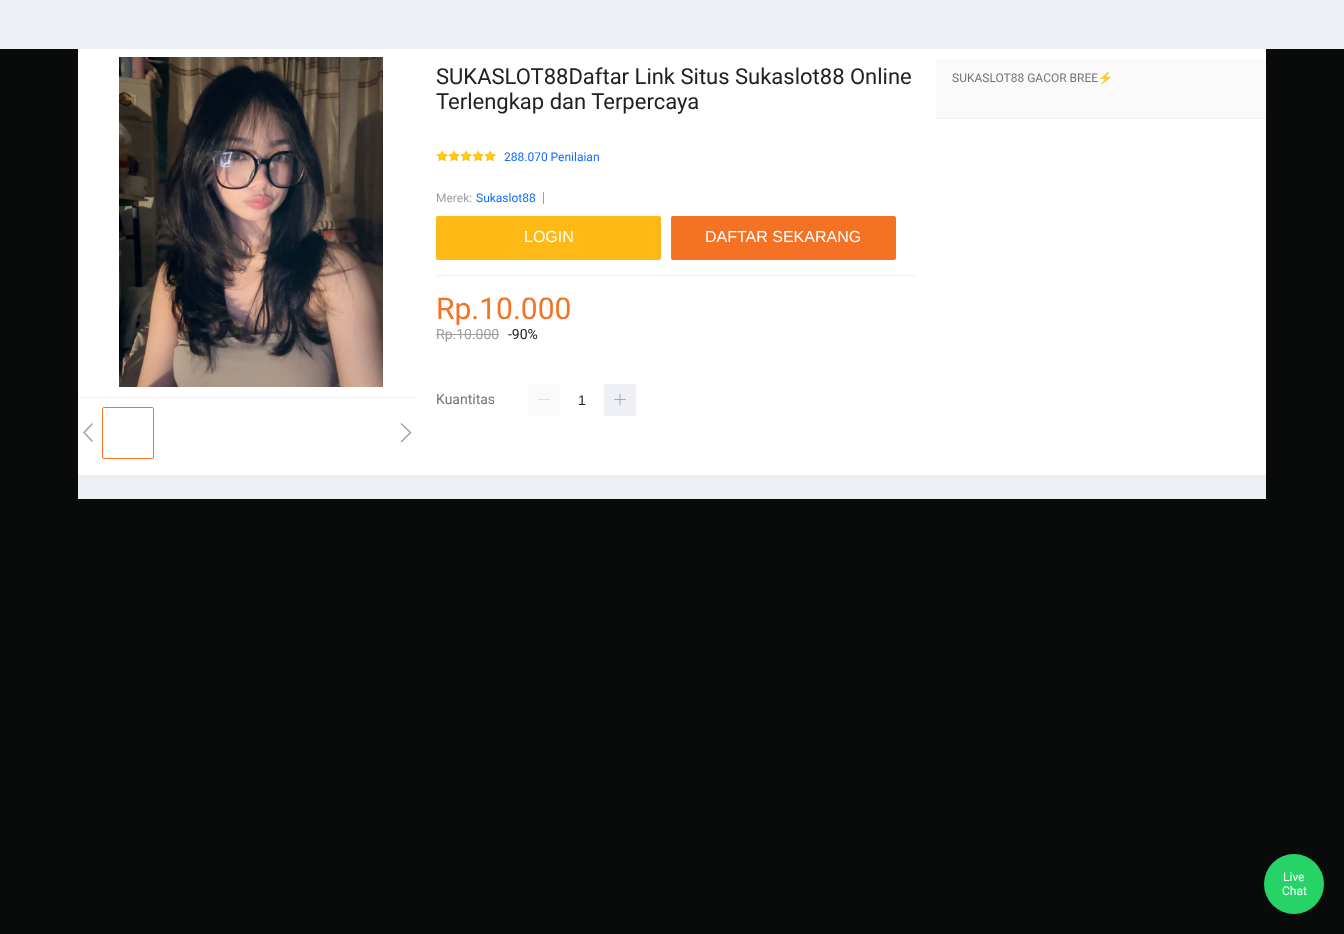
async function draw(canvas) {
  canvas.width = 1344
  canvas.height = 934
  const ctx = canvas.getContext('2d')
  ctx.miterLimit = 4
  ctx.fontKerning = 'normal'
  async function loadImage(src) {
    const img = new Image()
    img.src = src
    await img.decode()
    return img
  }

  ctx.fillStyle = '#090a0a'
  ctx.fillRect(0, 0, 1344, 934)
  ctx.fillStyle = '#eff0f5'
  ctx.fillRect(0, 0, 1344, 49)
  ctx.fillRect(78, 475, 1188, 24)
  ctx.fillStyle = '#fff'
  ctx.fillRect(78, 49, 1188, 426)
  ctx.fillStyle = '#eff0f5'
  ctx.fillRect(78, 397, 338, 1)
  ctx.drawImage(await loadImage('image0.png'), 119, 57, 264, 330)
  ctx.fillStyle = '#9e9e9e'
  ctx.beginPath()
  ctx.moveTo(93, 441)
  ctx.lineTo(85, 432.5)
  ctx.lineTo(93, 424)
  ctx.lineTo(92, 423)
  ctx.lineTo(83, 432.5)
  ctx.lineTo(92, 442)
  ctx.closePath()
  ctx.fill()
  ctx.beginPath()
  ctx.roundRect(102.5, 407.5, 51, 51, 1.5)
  ctx.strokeStyle = '#f57224'
  ctx.stroke()
  ctx.beginPath()
  ctx.moveTo(401.5, 442.5)
  ctx.lineTo(400.5, 441.5)
  ctx.lineTo(409.5, 432.5)
  ctx.lineTo(400.5, 424)
  ctx.lineTo(401.5, 423)
  ctx.lineTo(411.5, 432.5)
  ctx.closePath()
  ctx.fill()
  ctx.font = '22px Roboto'
  ctx.fillStyle = '#212121'
  ctx.fillText('SUKASLOT88Daftar Link Situs Sukaslot88 Online', 436, 84)
  ctx.fillText('Terlengkap dan Terpercaya', 436, 109)
  ctx.drawImage(await loadImage('image1.png'), 436, 150, 12, 12)
  ctx.drawImage(await loadImage('image1.png'), 448, 150, 12, 12)
  ctx.drawImage(await loadImage('image1.png'), 460, 150, 12, 12)
  ctx.drawImage(await loadImage('image1.png'), 472, 150, 12, 12)
  ctx.drawImage(await loadImage('image1.png'), 484, 150, 12, 12)
  ctx.font = '12px Roboto'
  ctx.fillStyle = '#136cff'
  ctx.fillText('288.070 Penilaian', 504, 161)
  ctx.fillStyle = '#eff0f5'
  ctx.fillRect(436, 275, 480, 1)
  ctx.fillStyle = '#9e9e9e'
  ctx.fillText('Merek:', 436, 202)
  ctx.fillStyle = '#136cff'
  ctx.fillText('Sukaslot88', 476, 202)
  ctx.fillStyle = '#9e9e9e'
  ctx.fillRect(543, 192, 1, 12)
  ctx.fillStyle = '#ffb916'
  ctx.beginPath()
  ctx.roundRect(436, 216, 225, 44, 2)
  ctx.fill()
  ctx.font = '16px Liberation Sans'
  ctx.fillStyle = '#fff'
  ctx.fillText('LOGIN', 524, 242)
  ctx.fillStyle = '#f57224'
  ctx.beginPath()
  ctx.roundRect(671, 216, 225, 44, 2)
  ctx.fill()
  ctx.fillStyle = '#fff'
  ctx.fillText('DAFTAR SEKARANG', 705, 242)
  ctx.font = '30px Roboto'
  ctx.fillStyle = '#f57224'
  ctx.fillText('Rp.10.000', 436, 319)
  ctx.font = '14px Roboto'
  ctx.fillStyle = '#9e9e9e'
  ctx.fillText('Rp.10.000', 436, 339)
  ctx.fillRect(436, 334, 63, 1)
  ctx.fillStyle = '#212121'
  ctx.fillText('-90%', 508, 339)
  ctx.fillStyle = '#757575'
  ctx.fillText('Kuantitas', 436, 404)
  ctx.fillStyle = '#fafafa'
  ctx.fillRect(528, 384, 32, 32)
  ctx.drawImage(await loadImage('image2.png'), 538, 399, 12, 1)
  ctx.fillStyle = '#eff0f5'
  ctx.fillRect(604, 384, 32, 32)
  ctx.drawImage(await loadImage('image3.png'), 614, 393, 12, 13)
  ctx.font = '14px Liberation Sans'
  ctx.fillStyle = '#212121'
  ctx.fillText('1', 578, 405)
  ctx.fillStyle = '#fafafa'
  ctx.fillRect(936, 59, 330, 59)
  ctx.font = '12px Roboto'
  ctx.fillStyle = '#757575'
  ctx.fillText('SUKASLOT88 GACOR BREE', 952, 82)
  ctx.font = '12px Noto Color Emoji'
  ctx.fillText('⚡️', 1098, 82)
  ctx.fillStyle = '#eff0f5'
  ctx.fillRect(936, 118, 330, 1)
  ctx.fillStyle = '#25d366'
  ctx.beginPath()
  ctx.arc(1294, 884, 30, 0, 2 * Math.PI)
  ctx.fill()
  ctx.font = '12px Roboto'
  ctx.fillStyle = '#fff'
  ctx.fillText('Live', 1283, 881)
  ctx.fillText('Chat', 1282, 895)
}

draw(document.querySelector('canvas'))
